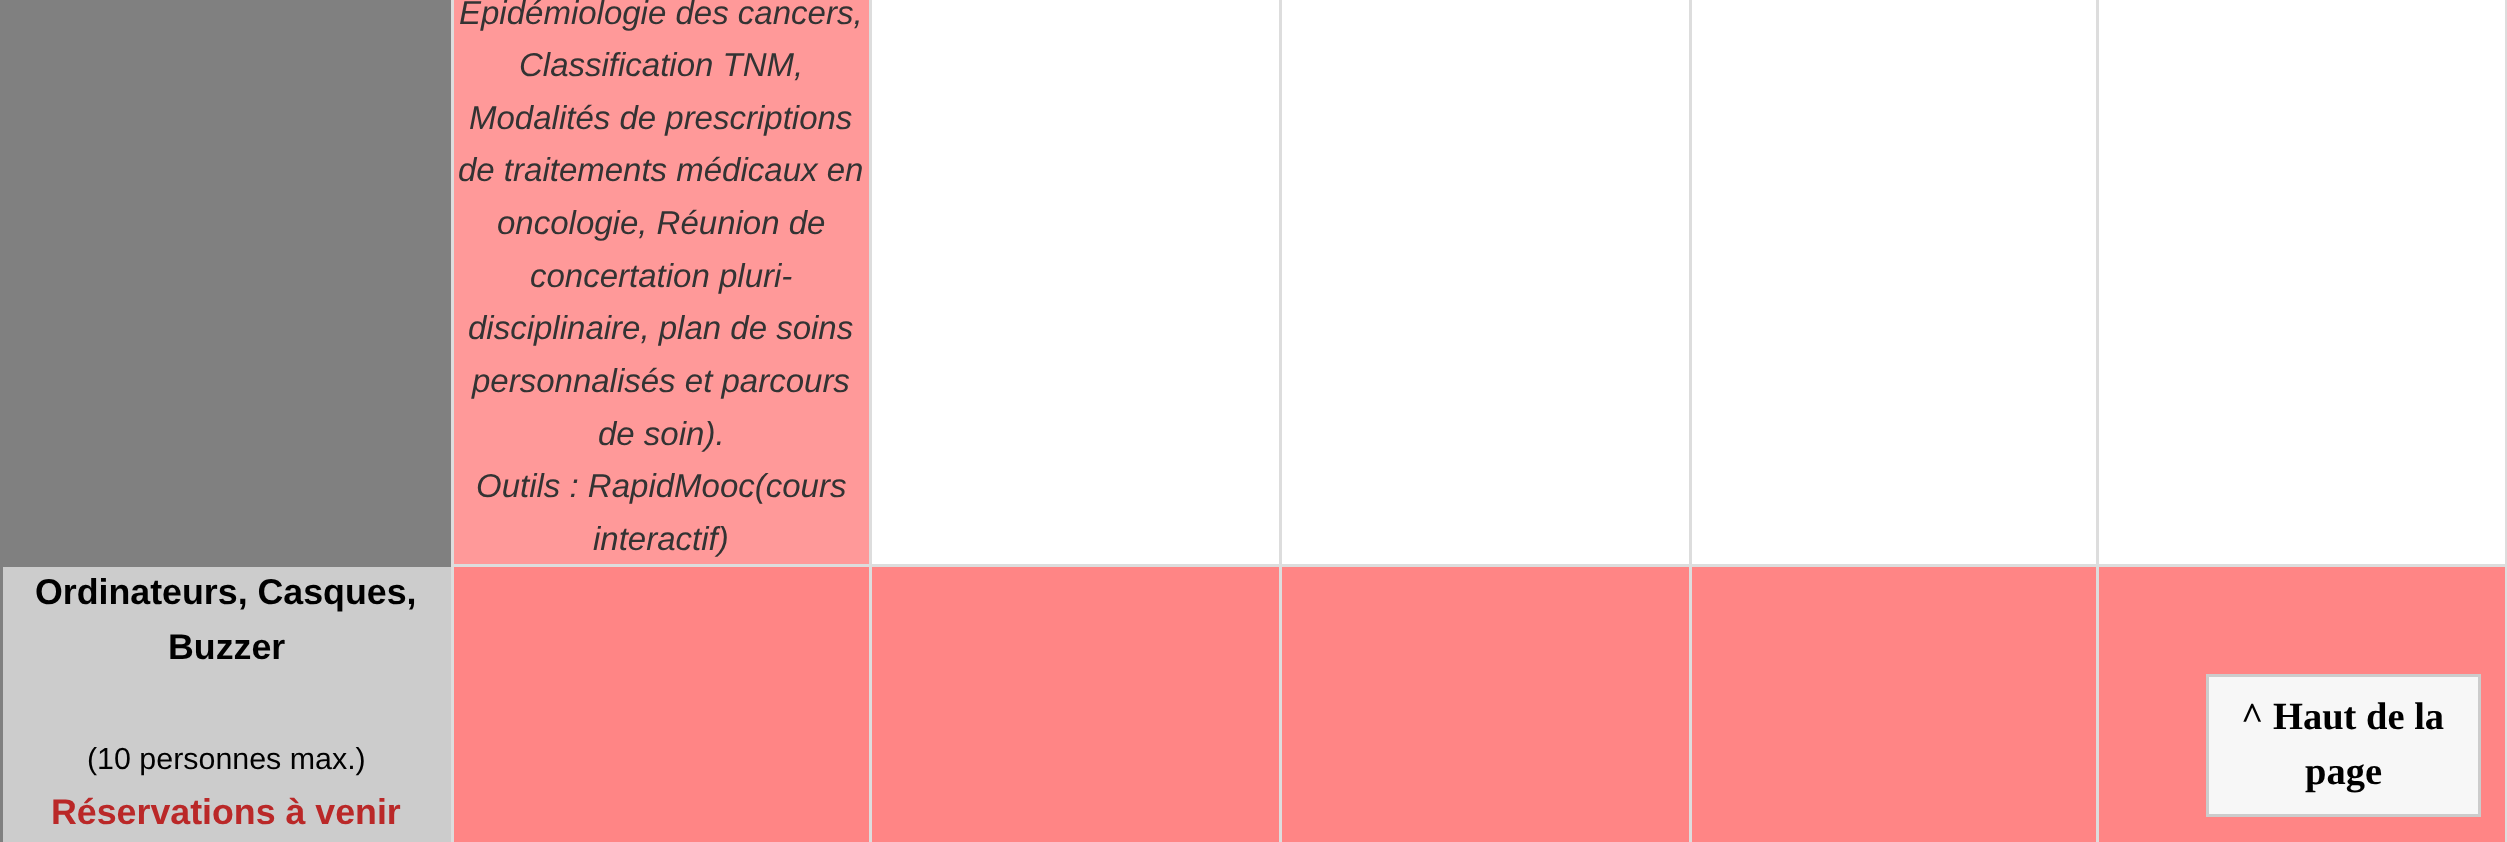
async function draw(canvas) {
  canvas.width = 2507
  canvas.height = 842
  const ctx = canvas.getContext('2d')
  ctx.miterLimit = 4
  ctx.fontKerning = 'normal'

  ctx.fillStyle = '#808080'
  ctx.fillRect(0, 0, 2507, 842)
  ctx.fillStyle = '#f99'
  ctx.fillRect(454, 0, 415, 564)
  ctx.font = 'italic 33px Liberation Sans'
  ctx.fillStyle = '#333'
  ctx.fillText('Épidémiologie des cancers,', 459, 24)
  ctx.fillText('Classification TNM,', 519, 76)
  ctx.fillText('Modalités de prescriptions', 469, 129)
  ctx.fillText('de traitements médicaux en', 458, 181)
  ctx.fillText('oncologie, Réunion de', 497, 234)
  ctx.fillText('concertation pluri-', 530, 287)
  ctx.fillText('disciplinaire, plan de soins', 468, 339)
  ctx.fillText('personnalisés et parcours', 472, 392)
  ctx.fillText('de soin).', 598, 445)
  ctx.fillText('Outils : RapidMooc(cours', 476, 497)
  ctx.fillText('interactif)', 593, 550)
  ctx.fillStyle = '#fff'
  ctx.fillRect(872, 0, 407, 564)
  ctx.fillStyle = '#ddd'
  ctx.fillRect(2096, 564, 411, 3)
  ctx.fillRect(2096, 564, 3, 278)
  ctx.fillRect(1689, 564, 409, 3)
  ctx.fillRect(1689, 564, 3, 278)
  ctx.fillRect(1279, 564, 412, 3)
  ctx.fillRect(1279, 564, 3, 278)
  ctx.fillRect(869, 564, 413, 3)
  ctx.fillRect(869, 564, 3, 278)
  ctx.fillRect(451, 564, 421, 3)
  ctx.fillRect(869, 0, 3, 567)
  ctx.fillStyle = '#fff'
  ctx.fillRect(1282, 0, 407, 564)
  ctx.fillStyle = '#ddd'
  ctx.fillRect(1279, 0, 3, 567)
  ctx.fillStyle = '#fff'
  ctx.fillRect(1692, 0, 404, 564)
  ctx.fillStyle = '#ddd'
  ctx.fillRect(1689, 0, 3, 567)
  ctx.fillStyle = '#fff'
  ctx.fillRect(2099, 0, 406, 564)
  ctx.fillStyle = '#ddd'
  ctx.fillRect(2096, 0, 3, 567)
  ctx.fillStyle = '#ccc'
  ctx.fillRect(3, 567, 448, 275)
  ctx.font = 'bold 35.75px Liberation Sans'
  ctx.fillStyle = '#000'
  ctx.fillText('Ordinateurs, Casques,', 35, 604)
  ctx.fillText('Buzzer', 168, 659)
  ctx.font = '30.4px Liberation Sans'
  ctx.fillText('(10 personnes max.)', 87, 769)
  ctx.font = 'bold 35.75px Liberation Sans'
  ctx.fillStyle = '#ba2828'
  ctx.fillText('Réservations à venir', 51, 824)
  ctx.fillStyle = '#ff8585'
  ctx.fillRect(454, 567, 415, 275)
  ctx.fillStyle = '#ddd'
  ctx.fillRect(451, 0, 3, 842)
  ctx.fillStyle = '#ff8585'
  ctx.fillRect(872, 567, 407, 275)
  ctx.fillRect(1282, 567, 407, 275)
  ctx.fillRect(1692, 567, 404, 275)
  ctx.fillRect(2099, 567, 406, 275)
  ctx.fillStyle = '#ddd'
  ctx.fillRect(2505, 0, 2, 842)
  ctx.fillStyle = '#f7f7f7'
  ctx.beginPath()
  ctx.rect(2207.5, 675.5, 272, 140)
  ctx.fill()
  ctx.strokeStyle = '#ccc'
  ctx.lineWidth = 3
  ctx.stroke()
  ctx.font = 'bold 38.5px Liberation Serif'
  ctx.fillStyle = '#000'
  ctx.fillText('^ Haut de la', 2241, 729)
  ctx.fillText('page', 2305, 784)
}

draw(document.querySelector('canvas'))
